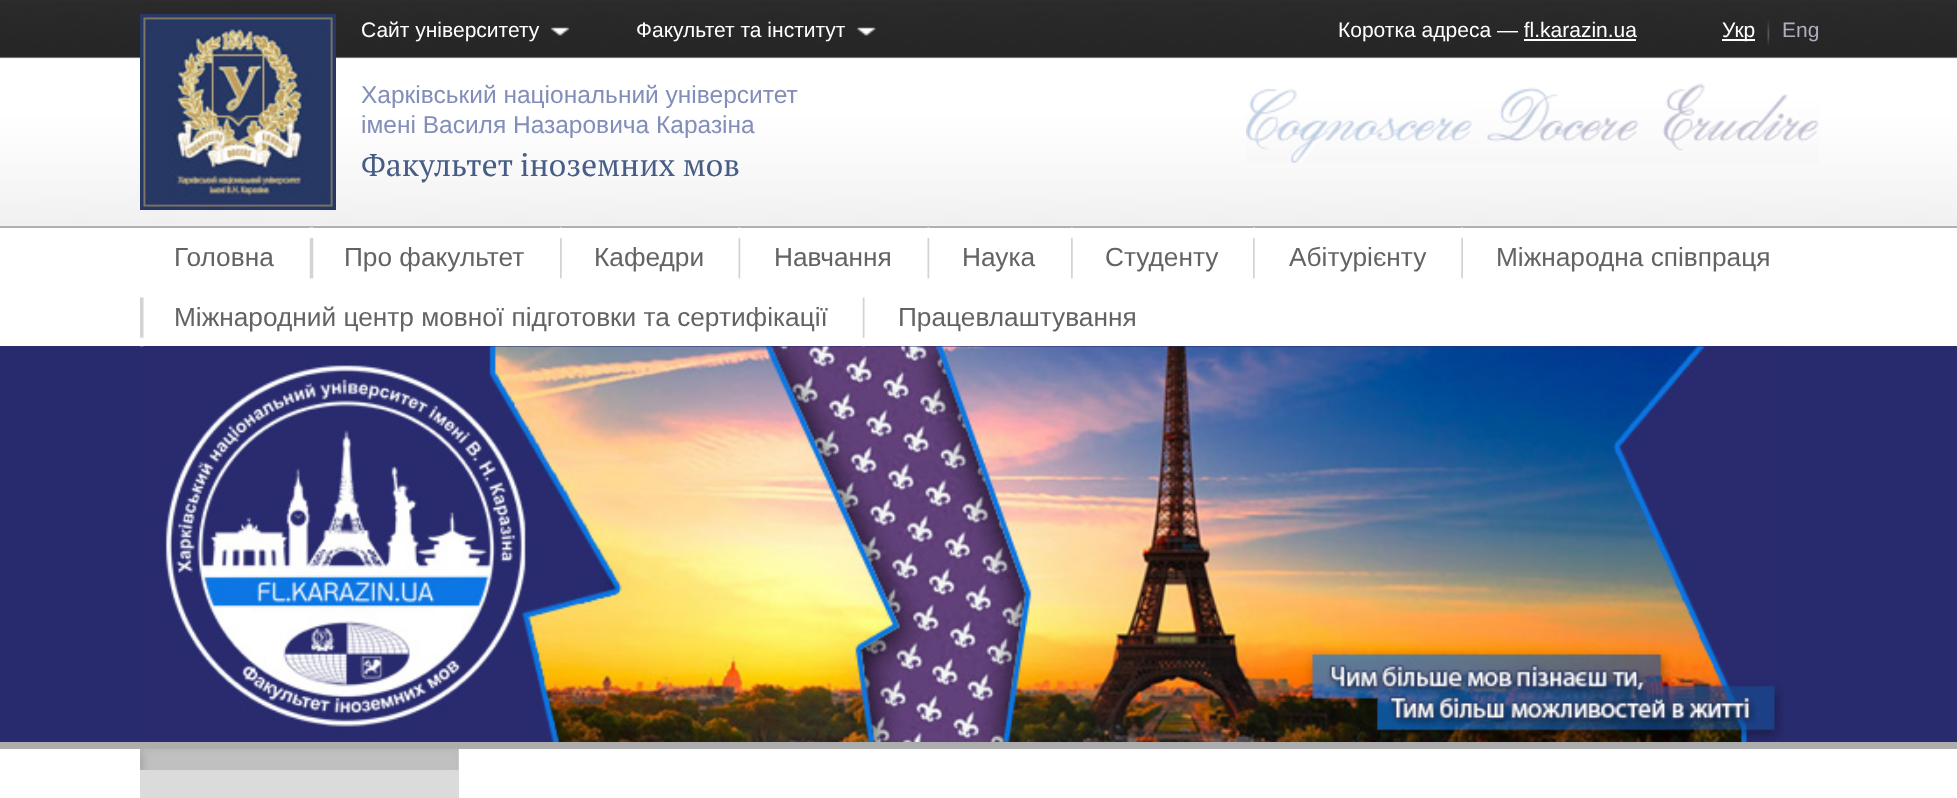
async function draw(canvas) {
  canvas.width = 1957
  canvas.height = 798
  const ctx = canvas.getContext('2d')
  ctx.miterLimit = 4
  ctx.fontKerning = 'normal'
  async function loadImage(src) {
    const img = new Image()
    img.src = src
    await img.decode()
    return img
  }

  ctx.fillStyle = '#fff'
  ctx.fillRect(0, 0, 1957, 798)
  ctx.drawImage(await loadImage('image0.png'), 0, 0, 1957, 226)
  ctx.drawImage(await loadImage('image1.png'), 140, 14, 196, 196)
  ctx.drawImage(await loadImage('image2.png'), 550, 27, 20, 9)
  ctx.font = '21px Liberation Sans'
  ctx.fillText('Сайт університету', 361, 37)
  ctx.drawImage(await loadImage('image3.png'), 857, 27, 19, 9)
  ctx.fillText('Факультет та інститут', 636, 37)
  ctx.fillText('Коротка адреса — fl.karazin.ua', 1338, 37)
  ctx.fillRect(1524, 39, 112, 2)
  ctx.drawImage(await loadImage('image4.png'), 1767, 20, 3, 26)
  ctx.fillRect(1722, 39, 33, 2)
  ctx.fillText('Укр', 1722, 37)
  ctx.fillStyle = '#adadbd'
  ctx.fillText('Eng', 1782, 37)
  ctx.font = '24.5px Liberation Sans'
  ctx.fillStyle = '#828eba'
  ctx.fillText('Харківський національний університет', 361, 103)
  ctx.fillText('імені Василя Назаровича Каразіна', 361, 133)
  ctx.font = '31.5px PT Serif'
  ctx.fillStyle = '#475d85'
  ctx.fillText('Факультет іноземних мов', 361, 176)
  ctx.drawImage(await loadImage('image5.png'), 1246, 83, 573, 80)
  ctx.fillStyle = '#afafaf'
  ctx.fillRect(0, 226, 1957, 2)
  ctx.fillStyle = '#adadad'
  ctx.fillRect(0, 742, 1957, 7)
  ctx.font = '26.25px Liberation Sans'
  ctx.fillStyle = '#636363'
  ctx.fillText('Головна', 174, 266)
  ctx.drawImage(await loadImage('image6.png'), 309, 227, 5, 52)
  ctx.fillText('Про факультет', 344, 266)
  ctx.drawImage(await loadImage('image7.png'), 560, 227, 2, 52)
  ctx.fillText('Кафедри', 594, 266)
  ctx.drawImage(await loadImage('image8.png'), 738, 227, 3, 52)
  ctx.fillText('Навчання', 774, 266)
  ctx.drawImage(await loadImage('image8.png'), 927, 227, 3, 52)
  ctx.fillText('Наука', 962, 266)
  ctx.drawImage(await loadImage('image7.png'), 1071, 227, 2, 52)
  ctx.fillText('Студенту', 1105, 266)
  ctx.drawImage(await loadImage('image7.png'), 1253, 227, 2, 52)
  ctx.fillText('Абітурієнту', 1289, 266)
  ctx.drawImage(await loadImage('image9.png'), 1461, 227, 2, 52)
  ctx.fillText('Міжнародна співпраця', 1496, 266)
  ctx.fillStyle = '#292b6f'
  ctx.fillRect(0, 346, 1957, 396)
  ctx.drawImage(await loadImage('image10.png'), 140, 297, 4, 50)
  ctx.fillStyle = '#636363'
  ctx.fillText('Міжнародний центр мовної підготовки та сертифікації', 174, 326)
  ctx.drawImage(await loadImage('image11.png'), 862, 297, 3, 50)
  ctx.fillText('Працевлаштування', 898, 326)
  ctx.drawImage(await loadImage('image12.png'), 140, 346, 1645, 396)
  ctx.fillStyle = '#dbdbdb'
  ctx.fillRect(140, 749, 319, 49)
  ctx.drawImage(await loadImage('image13.png'), 140, 749, 319, 21)
}

draw(document.querySelector('canvas'))
